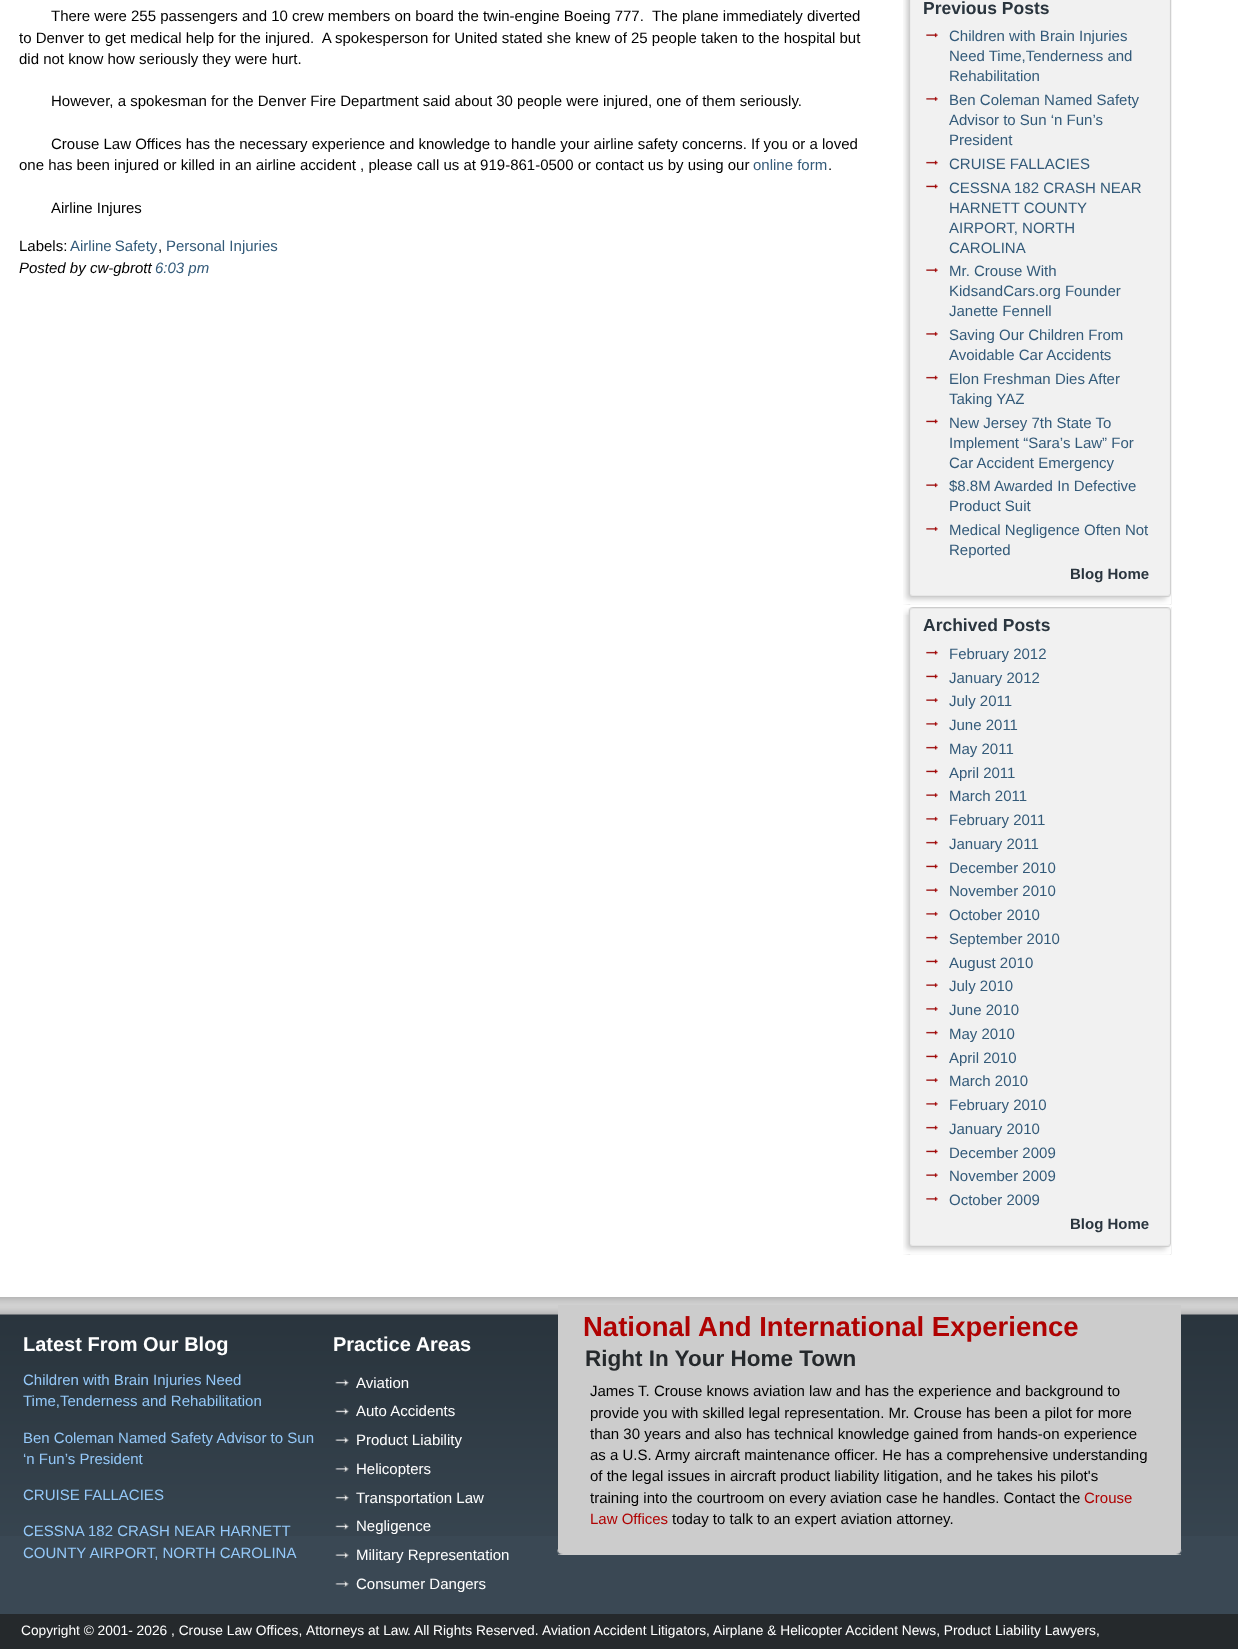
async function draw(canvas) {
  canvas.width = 1238
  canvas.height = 1649
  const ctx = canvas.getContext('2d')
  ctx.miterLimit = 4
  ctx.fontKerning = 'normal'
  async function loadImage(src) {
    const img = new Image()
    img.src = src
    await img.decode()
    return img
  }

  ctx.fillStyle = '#25292c'
  ctx.fillRect(0, 0, 1238, 1649)
  ctx.fillStyle = '#fff'
  ctx.fillRect(0, 0, 1238, 1297)
  ctx.font = '15px Liberation Sans'
  ctx.fillStyle = '#000'
  ctx.fillText('There were 255 passengers and 10 crew members on board the twin-engine Boeing 777.  The plane immediately diverted', 51, 21)
  ctx.fillText('to Denver to get medical help for the injured.  A spokesperson for United stated she knew of 25 people taken to the hospital but', 19, 43)
  ctx.fillText('did not know how seriously they were hurt.', 19, 64)
  ctx.fillText('However, a spokesman for the Denver Fire Department said about 30 people were injured, one of them seriously.', 51, 106)
  ctx.fillText('Crouse Law Offices has the necessary experience and knowledge to handle your airline safety concerns. If you or a loved', 51, 149)
  ctx.fillText('one has been injured or killed in an airline accident , please call us at 919-861-0500 or contact us by using our', 19, 170)
  ctx.fillStyle = '#335a79'
  ctx.fillText('online form', 753, 170)
  ctx.fillStyle = '#000'
  ctx.fillText('.', 828, 170)
  ctx.fillText('Airline Injures', 51, 213)
  ctx.fillText('Labels:', 19, 251)
  ctx.wordSpacing = '-1px'
  ctx.fillStyle = '#335a79'
  ctx.fillText('Airline Safety', 70, 251)
  ctx.wordSpacing = '0px'
  ctx.fillStyle = '#000'
  ctx.fillText(',', 158, 251)
  ctx.fillStyle = '#335a79'
  ctx.fillText('Personal Injuries', 166, 251)
  ctx.font = 'italic 15px Liberation Sans'
  ctx.fillStyle = '#000'
  ctx.fillText('Posted by cw-gbrott', 19, 273)
  ctx.fillStyle = '#335a79'
  ctx.fillText('6:03 pm', 155, 273)
  ctx.drawImage(await loadImage('image0.png'), 903, 0, 269, 605)
  ctx.drawImage(await loadImage('image1.png'), 903, 594, 268, 11)
  ctx.font = 'bold 17.5px Liberation Sans'
  ctx.fillStyle = '#2a353e'
  ctx.fillText('Previous Posts', 923, 14)
  ctx.drawImage(await loadImage('image2.png'), 926, 33, 12, 5)
  ctx.font = '15px Liberation Sans'
  ctx.fillStyle = '#335a79'
  ctx.fillText('Children with Brain Injuries', 949, 41)
  ctx.fillText('Need Time,Tenderness and', 949, 61)
  ctx.fillText('Rehabilitation', 949, 81)
  ctx.drawImage(await loadImage('image3.png'), 926, 96, 12, 5)
  ctx.fillText('Ben Coleman Named Safety', 949, 105)
  ctx.fillText('Advisor to Sun ‘n Fun’s', 949, 125)
  ctx.fillText('President', 949, 145)
  ctx.drawImage(await loadImage('image4.png'), 926, 160, 12, 5)
  ctx.fillText('CRUISE FALLACIES', 949, 169)
  ctx.drawImage(await loadImage('image5.png'), 926, 184, 12, 5)
  ctx.fillText('CESSNA 182 CRASH NEAR', 949, 193)
  ctx.fillText('HARNETT COUNTY', 949, 213)
  ctx.fillText('AIRPORT, NORTH', 949, 233)
  ctx.fillText('CAROLINA', 949, 253)
  ctx.drawImage(await loadImage('image2.png'), 926, 268, 12, 5)
  ctx.fillText('Mr. Crouse With', 949, 276)
  ctx.fillText('KidsandCars.org Founder', 949, 296)
  ctx.fillText('Janette Fennell', 949, 316)
  ctx.drawImage(await loadImage('image6.png'), 926, 331, 12, 5)
  ctx.fillText('Saving Our Children From', 949, 340)
  ctx.fillText('Avoidable Car Accidents', 949, 360)
  ctx.drawImage(await loadImage('image4.png'), 926, 375, 12, 5)
  ctx.fillText('Elon Freshman Dies After', 949, 384)
  ctx.fillText('Taking YAZ', 949, 404)
  ctx.drawImage(await loadImage('image5.png'), 926, 419, 12, 5)
  ctx.fillText('New Jersey 7th State To', 949, 428)
  ctx.fillText('Implement “Sara’s Law” For', 949, 448)
  ctx.fillText('Car Accident Emergency', 949, 468)
  ctx.drawImage(await loadImage('image2.png'), 926, 483, 12, 5)
  ctx.fillText('$8.8M Awarded In Defective', 949, 491)
  ctx.fillText('Product Suit', 949, 511)
  ctx.drawImage(await loadImage('image3.png'), 926, 526, 12, 5)
  ctx.fillText('Medical Negligence Often Not', 949, 535)
  ctx.fillText('Reported', 949, 555)
  ctx.font = 'bold 15px Liberation Sans'
  ctx.fillStyle = '#2a353e'
  ctx.fillText('Blog Home', 1070, 579)
  ctx.drawImage(await loadImage('image7.png'), 903, 607, 269, 648)
  ctx.drawImage(await loadImage('image8.png'), 903, 607, 268, 8)
  ctx.drawImage(await loadImage('image1.png'), 903, 1244, 268, 11)
  ctx.font = 'bold 17.5px Liberation Sans'
  ctx.fillText('Archived Posts', 923, 631)
  ctx.drawImage(await loadImage('image4.png'), 926, 650, 12, 5)
  ctx.font = '15px Liberation Sans'
  ctx.fillStyle = '#335a79'
  ctx.fillText('February 2012', 949, 659)
  ctx.drawImage(await loadImage('image5.png'), 926, 674, 12, 5)
  ctx.fillText('January 2012', 949, 683)
  ctx.drawImage(await loadImage('image2.png'), 926, 698, 12, 5)
  ctx.fillText('July 2011', 949, 706)
  ctx.drawImage(await loadImage('image3.png'), 926, 721, 12, 5)
  ctx.fillText('June 2011', 949, 730)
  ctx.drawImage(await loadImage('image4.png'), 926, 745, 12, 5)
  ctx.fillText('May 2011', 949, 754)
  ctx.drawImage(await loadImage('image5.png'), 926, 769, 12, 5)
  ctx.fillText('April 2011', 949, 778)
  ctx.drawImage(await loadImage('image2.png'), 926, 793, 12, 5)
  ctx.fillText('March 2011', 949, 801)
  ctx.drawImage(await loadImage('image3.png'), 926, 816, 12, 5)
  ctx.fillText('February 2011', 949, 825)
  ctx.drawImage(await loadImage('image4.png'), 926, 840, 12, 5)
  ctx.fillText('January 2011', 949, 849)
  ctx.drawImage(await loadImage('image5.png'), 926, 864, 12, 5)
  ctx.fillText('December 2010', 949, 873)
  ctx.drawImage(await loadImage('image2.png'), 926, 888, 12, 5)
  ctx.fillText('November 2010', 949, 896)
  ctx.drawImage(await loadImage('image3.png'), 926, 911, 12, 5)
  ctx.fillText('October 2010', 949, 920)
  ctx.drawImage(await loadImage('image4.png'), 926, 935, 12, 5)
  ctx.fillText('September 2010', 949, 944)
  ctx.drawImage(await loadImage('image5.png'), 926, 959, 12, 5)
  ctx.fillText('August 2010', 949, 968)
  ctx.drawImage(await loadImage('image2.png'), 926, 983, 12, 5)
  ctx.fillText('July 2010', 949, 991)
  ctx.drawImage(await loadImage('image3.png'), 926, 1006, 12, 5)
  ctx.fillText('June 2010', 949, 1015)
  ctx.drawImage(await loadImage('image4.png'), 926, 1030, 12, 5)
  ctx.fillText('May 2010', 949, 1039)
  ctx.drawImage(await loadImage('image5.png'), 926, 1054, 12, 5)
  ctx.fillText('April 2010', 949, 1063)
  ctx.drawImage(await loadImage('image2.png'), 926, 1078, 12, 5)
  ctx.fillText('March 2010', 949, 1086)
  ctx.drawImage(await loadImage('image3.png'), 926, 1101, 12, 5)
  ctx.fillText('February 2010', 949, 1110)
  ctx.drawImage(await loadImage('image4.png'), 926, 1125, 12, 5)
  ctx.fillText('January 2010', 949, 1134)
  ctx.drawImage(await loadImage('image5.png'), 926, 1149, 12, 5)
  ctx.fillText('December 2009', 949, 1158)
  ctx.drawImage(await loadImage('image2.png'), 926, 1173, 12, 5)
  ctx.fillText('November 2009', 949, 1181)
  ctx.drawImage(await loadImage('image3.png'), 926, 1196, 12, 5)
  ctx.fillText('October 2009', 949, 1205)
  ctx.font = 'bold 15px Liberation Sans'
  ctx.fillStyle = '#2a353e'
  ctx.fillText('Blog Home', 1070, 1229)
  ctx.fillStyle = '#3a4854'
  ctx.fillRect(0, 1536, 1238, 78)
  ctx.drawImage(await loadImage('image9.png'), 0, 1297, 1238, 239)
  ctx.font = 'bold 20px Liberation Sans'
  ctx.fillStyle = '#fff'
  ctx.fillText('Latest From Our Blog', 23, 1351)
  ctx.font = '15px Liberation Sans'
  ctx.fillStyle = '#94c8f8'
  ctx.fillText('Children with Brain Injuries Need', 23, 1385)
  ctx.fillText('Time,Tenderness and Rehabilitation', 23, 1406)
  ctx.fillText('Ben Coleman Named Safety Advisor to Sun', 23, 1443)
  ctx.fillText('‘n Fun’s President', 23, 1464)
  ctx.fillText('CRUISE FALLACIES', 23, 1500)
  ctx.fillText('CESSNA 182 CRASH NEAR HARNETT', 23, 1536)
  ctx.fillText('COUNTY AIRPORT, NORTH CAROLINA', 23, 1558)
  ctx.font = 'bold 20px Liberation Sans'
  ctx.fillStyle = '#fff'
  ctx.fillText('Practice Areas', 333, 1351)
  ctx.drawImage(await loadImage('image10.png'), 335, 1379, 14, 7)
  ctx.font = '15px Liberation Sans'
  ctx.fillText('Aviation', 356, 1388)
  ctx.drawImage(await loadImage('image11.png'), 335, 1408, 14, 7)
  ctx.fillText('Auto Accidents', 356, 1416)
  ctx.drawImage(await loadImage('image12.png'), 335, 1437, 14, 7)
  ctx.fillText('Product Liability', 356, 1445)
  ctx.drawImage(await loadImage('image13.png'), 335, 1465, 14, 7)
  ctx.fillText('Helicopters', 356, 1474)
  ctx.drawImage(await loadImage('image14.png'), 335, 1494, 14, 7)
  ctx.fillText('Transportation Law', 356, 1503)
  ctx.drawImage(await loadImage('image15.png'), 335, 1523, 14, 7)
  ctx.fillText('Negligence', 356, 1531)
  ctx.drawImage(await loadImage('image16.png'), 335, 1552, 14, 7)
  ctx.fillText('Military Representation', 356, 1560)
  ctx.drawImage(await loadImage('image17.png'), 335, 1580, 14, 7)
  ctx.fillText('Consumer Dangers', 356, 1589)
  ctx.fillStyle = '#ccc'
  ctx.fillRect(558, 1305, 623, 250)
  ctx.drawImage(await loadImage('image18.png'), 557, 1549, 625, 6)
  ctx.font = 'bold 27.5px Liberation Sans'
  ctx.fillStyle = '#af0202'
  ctx.fillText('National And International Experience', 583, 1336)
  ctx.font = 'bold 22.5px Liberation Sans'
  ctx.fillStyle = '#25292c'
  ctx.fillText('Right In Your Home Town', 585, 1366)
  ctx.font = '15px Liberation Sans'
  ctx.fillStyle = '#000'
  ctx.fillText('James T. Crouse knows aviation law and has the experience and background to', 590, 1396)
  ctx.fillText('provide you with skilled legal representation. Mr. Crouse has been a pilot for more', 590, 1418)
  ctx.fillText('than 30 years and also has technical knowledge gained from hands-on experience', 590, 1439)
  ctx.fillText('as a U.S. Army aircraft maintenance officer. He has a comprehensive understanding', 590, 1460)
  ctx.fillText('of the legal issues in aircraft product liability litigation, and he takes his pilot\'s', 590, 1481)
  ctx.fillText('training into the courtroom on every aviation case he handles. Contact the', 590, 1503)
  ctx.fillStyle = '#af0202'
  ctx.fillText('Crouse', 1084, 1503)
  ctx.fillText('Law Offices', 590, 1524)
  ctx.fillStyle = '#000'
  ctx.fillText('today to talk to an expert aviation attorney.', 672, 1524)
  ctx.font = '13.75px Liberation Sans'
  ctx.fillStyle = '#fff'
  ctx.fillText('Copyright © 2001- 2026 , Crouse Law Offices,', 21, 1635)
  ctx.fillText('Attorneys at Law', 306, 1635)
  ctx.fillText('.', 407, 1635)
  ctx.fillText('All Rights Reserved.', 414, 1635)
  ctx.fillText('Aviation Accident Litigators,', 542, 1635)
  ctx.fillText('Airplane & Helicopter Accident News, Product Liability Lawyers,', 713, 1635)
}

draw(document.querySelector('canvas'))
